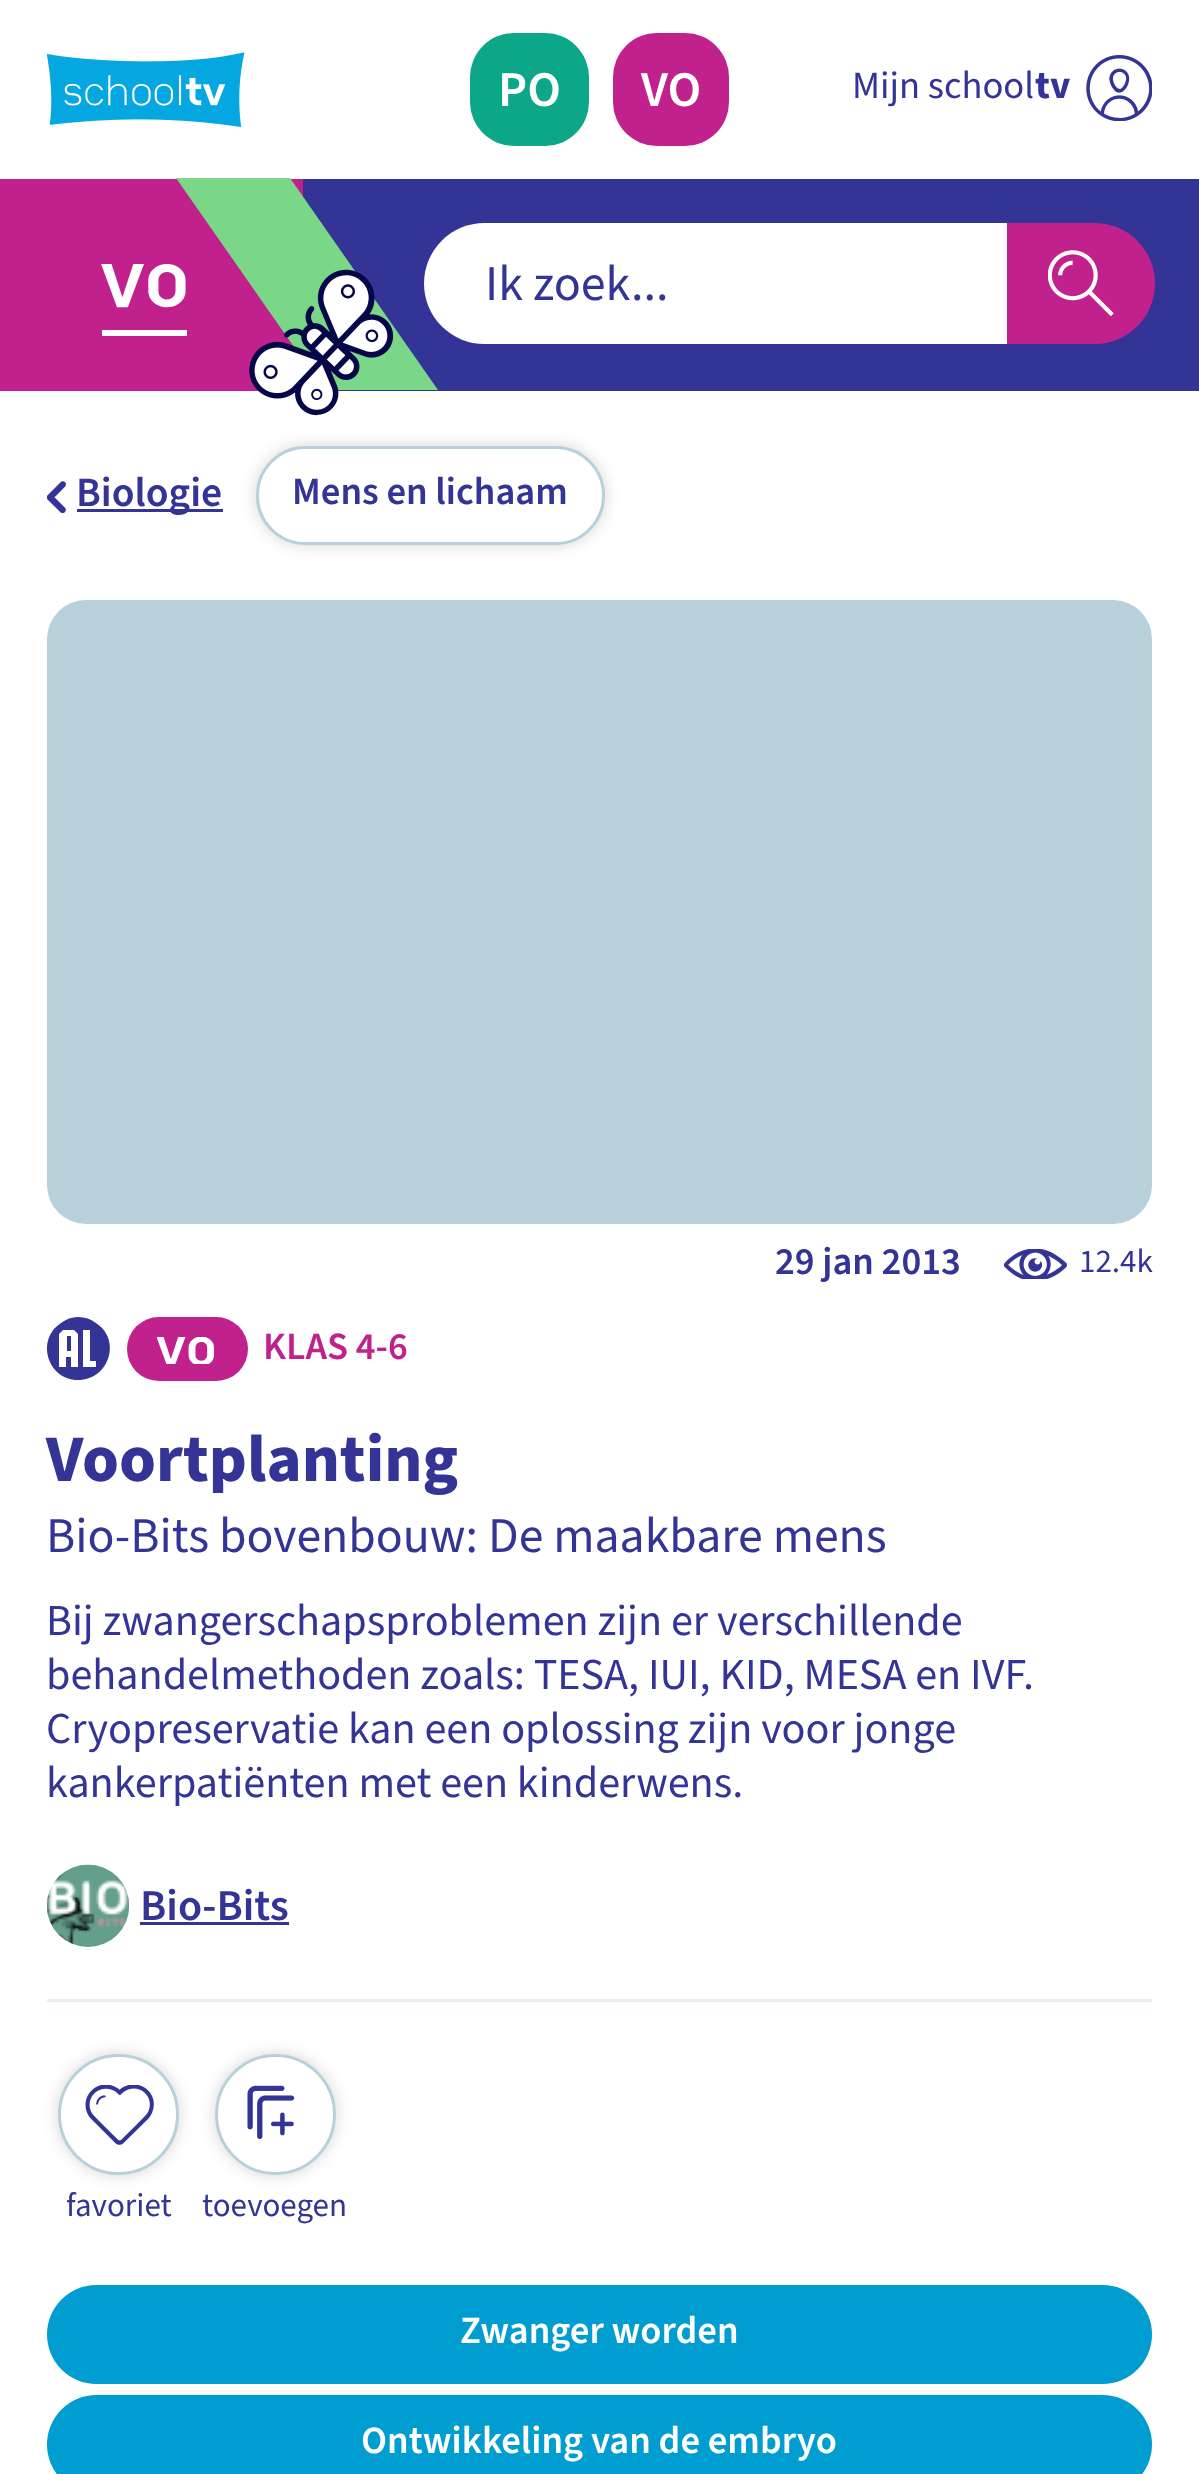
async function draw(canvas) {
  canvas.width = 1199
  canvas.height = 2474
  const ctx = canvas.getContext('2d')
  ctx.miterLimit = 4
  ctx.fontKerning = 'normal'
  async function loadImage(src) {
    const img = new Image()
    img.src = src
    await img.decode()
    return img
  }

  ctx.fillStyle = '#fff'
  ctx.fillRect(0, 0, 1199, 2474)
  ctx.drawImage(await loadImage('image0.png'), 47, 52, 198, 75)
  ctx.fillStyle = '#0ca788'
  ctx.beginPath()
  ctx.roundRect(470, 33, 119, 113, 44)
  ctx.fill()
  ctx.font = '600 50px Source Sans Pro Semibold'
  ctx.fillStyle = '#fff'
  ctx.fillText('PO', 498, 106)
  ctx.fillStyle = '#c1218c'
  ctx.beginPath()
  ctx.roundRect(613, 33, 116, 113, 44)
  ctx.fill()
  ctx.fillStyle = '#fff'
  ctx.fillText('VO', 641, 106)
  ctx.font = '38.5px Source Sans Pro'
  ctx.fillStyle = '#333496'
  ctx.fillText('Mijn school', 852, 98)
  ctx.font = 'bold 38.5px Source Sans Pro'
  ctx.fillText('tv', 1035, 98)
  ctx.drawImage(await loadImage('image1.png'), 1086, 55, 66, 66)
  ctx.fillRect(303, 179, 896, 212)
  ctx.fillStyle = '#c1218c'
  ctx.fillRect(0, 179, 303, 212)
  ctx.drawImage(await loadImage('image2.png'), 101, 264, 85, 44)
  ctx.fillStyle = '#fff'
  ctx.fillRect(102, 330, 85, 6)
  ctx.fillStyle = '#79d787'
  ctx.beginPath()
  ctx.moveTo(176, 178)
  ctx.lineTo(290, 178)
  ctx.lineTo(438, 390)
  ctx.lineTo(324, 390)
  ctx.closePath()
  ctx.fill()
  ctx.drawImage(await loadImage('image3.png'), 249, 269, 145, 147)
  ctx.fillStyle = '#fff'
  ctx.beginPath()
  ctx.roundRect(424, 223, 583, 121, [60.5, 0, 0, 60.5])
  ctx.fill()
  ctx.font = '50px Source Sans Pro'
  ctx.fillStyle = '#333496'
  ctx.fillText('Ik zoek...', 485, 300)
  ctx.fillStyle = '#c1218c'
  ctx.beginPath()
  ctx.roundRect(1007, 223, 148, 121, [0, 60.5, 60.5, 0])
  ctx.fill()
  ctx.drawImage(await loadImage('image4.png'), 1048, 250, 66, 66)
  ctx.drawImage(await loadImage('image5.png'), 47, 481, 19, 33)
  ctx.fillStyle = '#333496'
  ctx.fillRect(77, 509, 146, 3)
  ctx.font = '600 41.5px Source Sans Pro Semibold'
  ctx.fillText('Biologie', 76, 506)
  ctx.fillStyle = '#00000029'
  ctx.filter = 'blur(8px)'
  ctx.beginPath()
  ctx.roundRect(256, 446, 349, 99, 49.5)
  ctx.fill()
  ctx.filter = 'none'
  ctx.fillStyle = '#fff'
  ctx.beginPath()
  ctx.roundRect(257.5, 447.5, 346, 96, 48)
  ctx.fill()
  ctx.strokeStyle = '#b7d0d9'
  ctx.lineWidth = 3
  ctx.stroke()
  ctx.font = '600 38.6px Source Sans Pro Semibold'
  ctx.fillStyle = '#333496'
  ctx.fillText('Mens en lichaam', 292, 504)
  ctx.fillStyle = '#b7d0d9'
  ctx.beginPath()
  ctx.roundRect(47, 600, 1105, 624, 39)
  ctx.fill()
  ctx.font = '600 38.5px Source Sans Pro Semibold'
  ctx.fillStyle = '#333496'
  ctx.fillText('29 jan 2013', 775, 1274)
  ctx.drawImage(await loadImage('image6.png'), 1004, 1249, 63, 30)
  ctx.font = '33px Source Sans Pro'
  ctx.fillText('12.4k', 1079, 1272)
  ctx.fillStyle = '#e5f0f2'
  ctx.fillRect(47, 1999, 1105, 3)
  ctx.fillStyle = '#333496'
  ctx.fillRect(67, 1336, 4, 15)
  ctx.beginPath()
  ctx.moveTo(78, 1317)
  ctx.bezierCurveTo(72, 1317, 66, 1319, 61, 1323)
  ctx.bezierCurveTo(35, 1340, 48, 1380, 78, 1380)
  ctx.bezierCurveTo(109, 1380, 122, 1340, 96, 1323)
  ctx.bezierCurveTo(91, 1319, 85, 1317, 78, 1317)
  ctx.moveTo(78, 1367)
  ctx.lineTo(71, 1367)
  ctx.lineTo(71, 1357)
  ctx.lineTo(66, 1357)
  ctx.lineTo(66, 1367)
  ctx.lineTo(59, 1367)
  ctx.lineTo(59, 1334)
  ctx.lineTo(63, 1330)
  ctx.lineTo(74, 1330)
  ctx.lineTo(78, 1334)
  ctx.closePath()
  ctx.moveTo(96, 1367)
  ctx.lineTo(83, 1367)
  ctx.lineTo(83, 1330)
  ctx.lineTo(90, 1330)
  ctx.lineTo(90, 1361)
  ctx.lineTo(96, 1361)
  ctx.closePath()
  ctx.fill()
  ctx.fillStyle = '#c1218c'
  ctx.beginPath()
  ctx.roundRect(127, 1317, 121, 64, 32)
  ctx.fill()
  ctx.drawImage(await loadImage('image7.png'), 157, 1337, 58, 27)
  ctx.font = '600 38.5px Source Sans Pro Semibold'
  ctx.fillText('KLAS 4-6', 263, 1359)
  ctx.font = 'bold 66.5px Source Sans Pro'
  ctx.fillStyle = '#333496'
  ctx.fillText('Voortplanting', 46, 1481)
  ctx.font = '49.75px Source Sans Pro'
  ctx.fillText('Bio-Bits bovenbouw: De maakbare mens', 46, 1552)
  ctx.font = '44.1px Source Sans Pro'
  ctx.fillText('Bij zwangerschapsproblemen zijn er verschillende', 46, 1635)
  ctx.fillText('behandelmethoden zoals: TESA, IUI, KID, MESA en IVF.', 46, 1689)
  ctx.fillText('Cryopreservatie kan een oplossing zijn voor jonge', 46, 1743)
  ctx.fillText('kankerpatiënten met een kinderwens.', 46, 1797)
  ctx.fillStyle = '#e5f0f2'
  ctx.beginPath()
  ctx.arc(88, 1906, 41, 0, 2 * Math.PI)
  ctx.fill()
  ctx.drawImage(await loadImage('image8.png'), 46, 1864, 84, 83)
  ctx.font = '600 44px Source Sans Pro Semibold'
  ctx.fillStyle = '#333496'
  ctx.fillText('Bio-Bits', 140, 1920)
  ctx.fillRect(140, 1922, 149, 3)
  ctx.fillStyle = '#00000029'
  ctx.filter = 'blur(8px)'
  ctx.beginPath()
  ctx.roundRect(58, 2054, 121, 121, 60.5)
  ctx.fill()
  ctx.filter = 'none'
  ctx.fillStyle = '#fff'
  ctx.beginPath()
  ctx.arc(118.5, 2114.5, 59, 0, 2 * Math.PI)
  ctx.fill()
  ctx.stroke()
  ctx.drawImage(await loadImage('image9.png'), 85, 2085, 69, 60)
  ctx.font = '33px Source Sans Pro'
  ctx.fillStyle = '#333496'
  ctx.fillText('favoriet', 66, 2216)
  ctx.save()
  ctx.beginPath()
  ctx.moveTo(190, 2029)
  ctx.lineTo(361, 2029)
  ctx.lineTo(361, 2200)
  ctx.lineTo(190, 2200)
  ctx.closePath()
  ctx.moveTo(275.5, 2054)
  ctx.bezierCurveTo(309, 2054, 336, 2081, 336, 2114.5)
  ctx.bezierCurveTo(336, 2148, 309, 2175, 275.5, 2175)
  ctx.bezierCurveTo(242, 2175, 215, 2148, 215, 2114.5)
  ctx.bezierCurveTo(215, 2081, 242, 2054, 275.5, 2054)
  ctx.closePath()
  ctx.clip('evenodd')
  ctx.fillStyle = '#00000029'
  ctx.filter = 'blur(8px)'
  ctx.beginPath()
  ctx.roundRect(215, 2054, 121, 121, 60.5)
  ctx.fill()
  ctx.filter = 'none'
  ctx.restore()
  ctx.beginPath()
  ctx.arc(275.5, 2114.5, 59, 0, 2 * Math.PI)
  ctx.stroke()
  ctx.drawImage(await loadImage('image10.png'), 247, 2085, 48, 54)
  ctx.fillText('toevoegen', 202, 2216)
  ctx.fillStyle = '#009dd1'
  ctx.beginPath()
  ctx.roundRect(47, 2285, 1105, 99, 49.5)
  ctx.fill()
  ctx.font = '600 38.6px Source Sans Pro Semibold'
  ctx.fillStyle = '#fff'
  ctx.fillText('Zwanger worden', 460, 2343)
  ctx.fillStyle = '#009dd1'
  ctx.beginPath()
  ctx.roundRect(47, 2395, 1105, 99, 49.5)
  ctx.fill()
  ctx.fillStyle = '#fff'
  ctx.fillText('Ontwikkeling van de embryo', 361, 2453)
}

draw(document.querySelector('canvas'))
